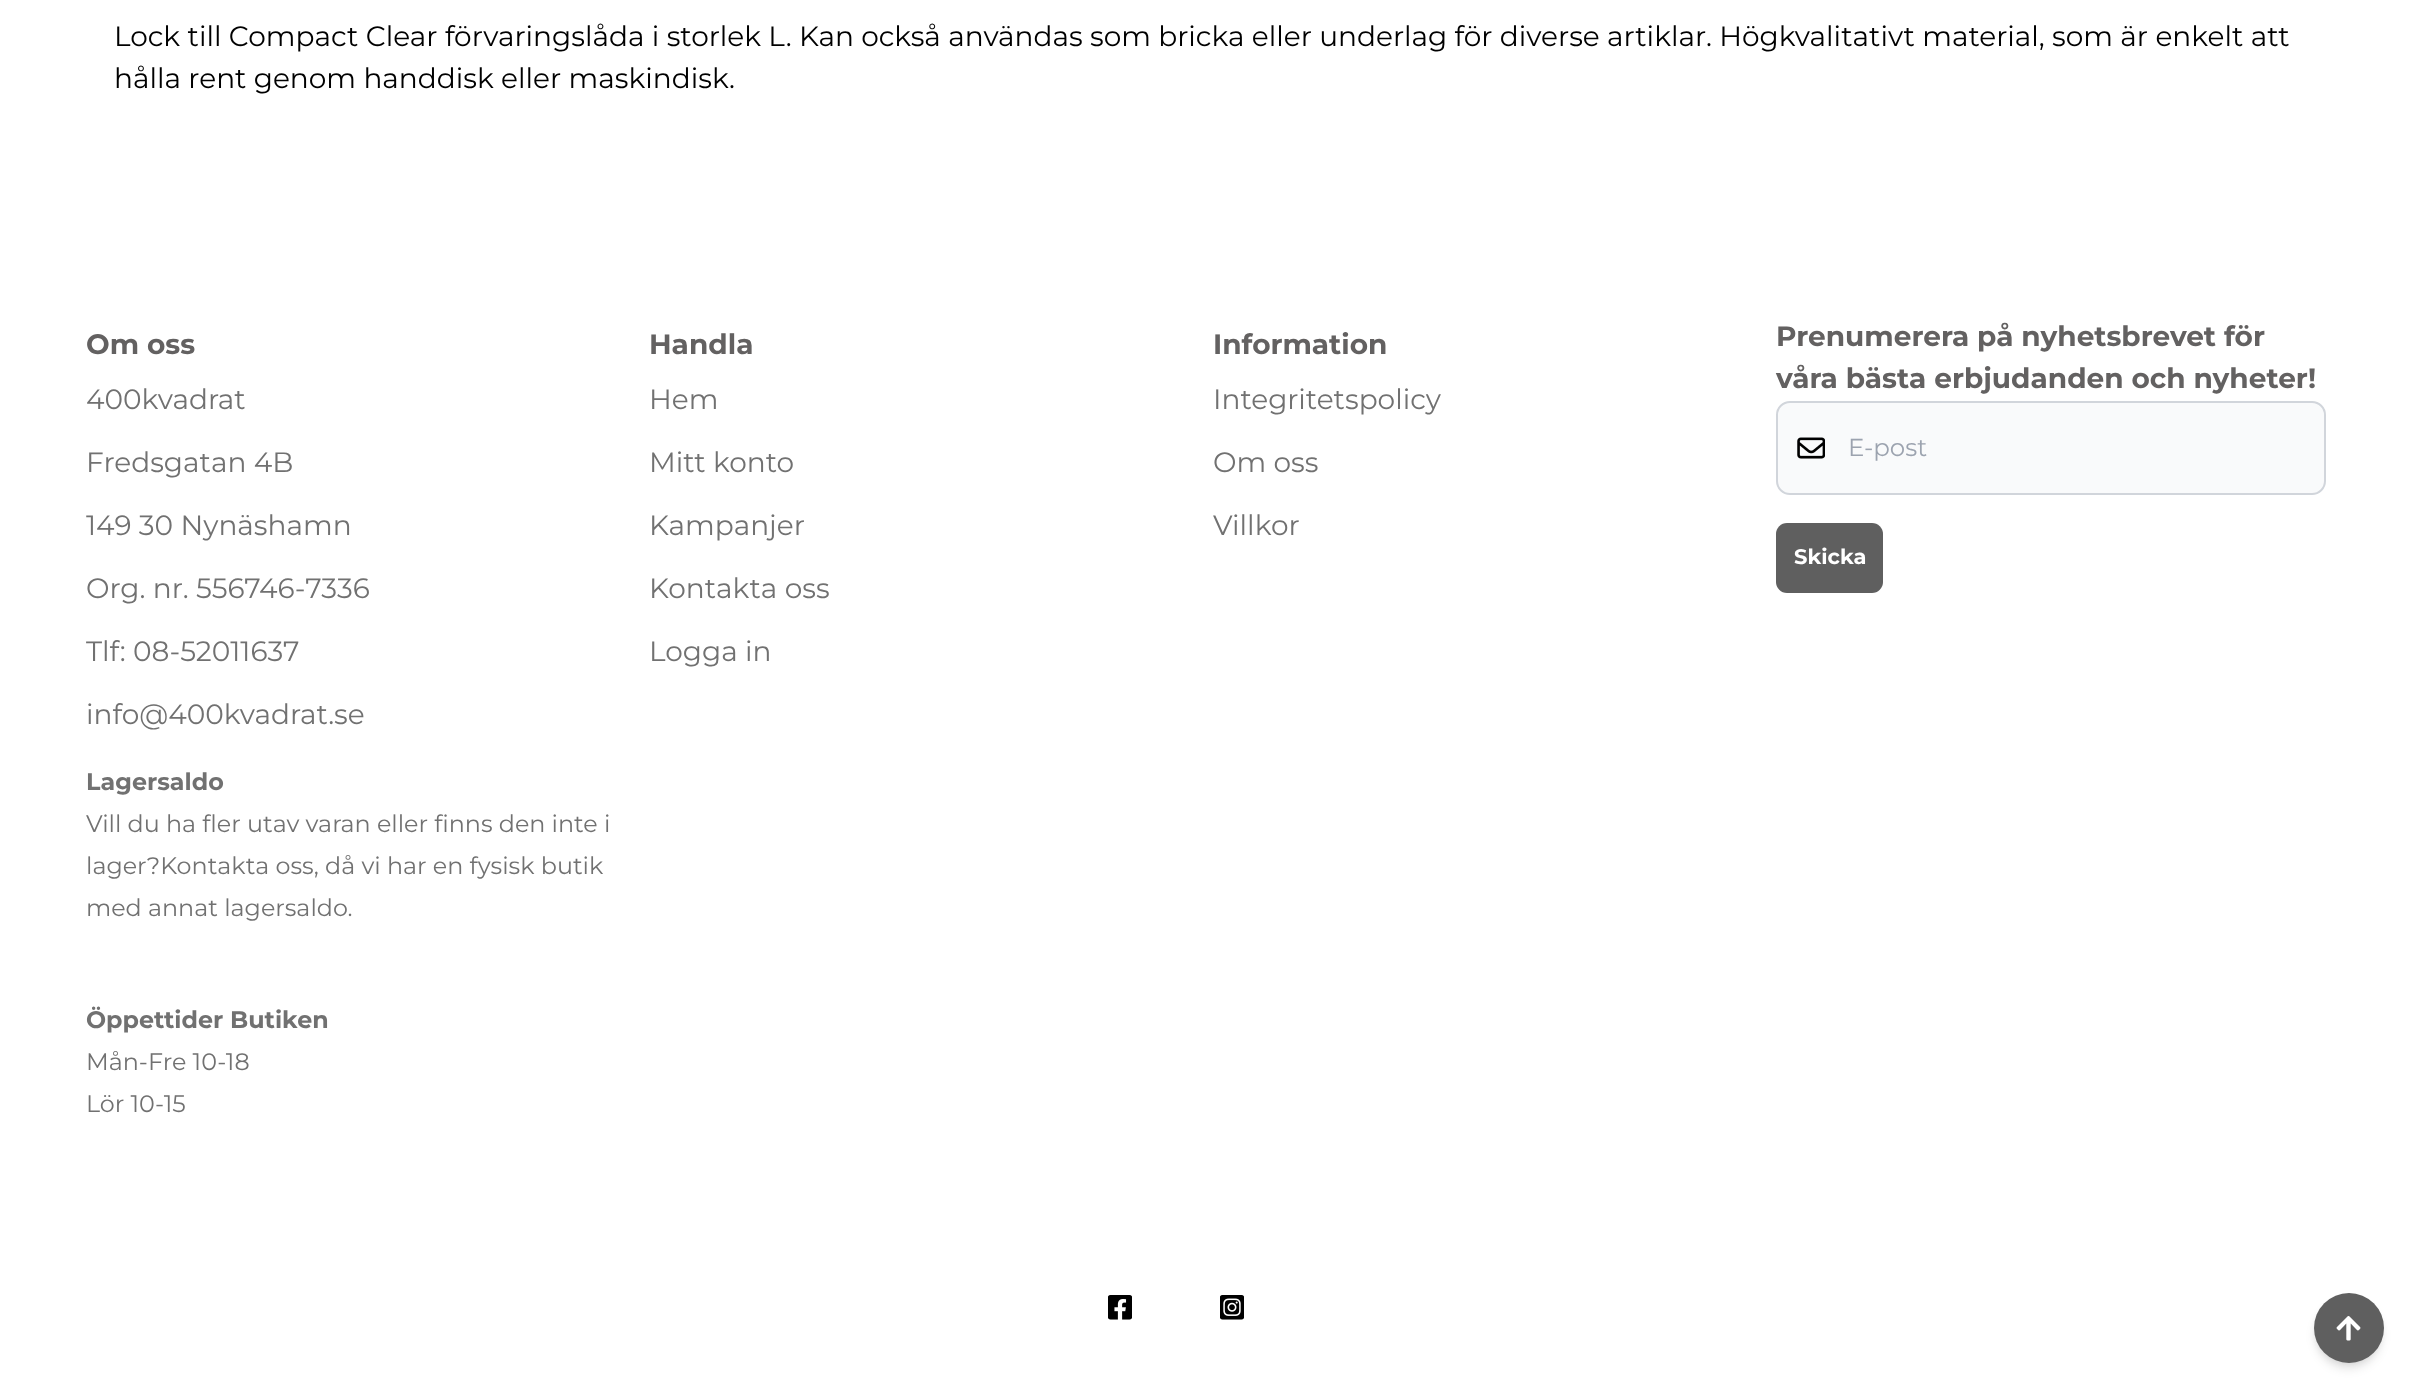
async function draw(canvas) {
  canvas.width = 2411
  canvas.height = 1391
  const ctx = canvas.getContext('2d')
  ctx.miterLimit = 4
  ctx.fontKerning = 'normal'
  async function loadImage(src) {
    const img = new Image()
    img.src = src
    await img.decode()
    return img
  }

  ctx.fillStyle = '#fff'
  ctx.fillRect(0, 0, 2411, 1391)
  ctx.font = '100 28px Montserrat'
  ctx.fillStyle = '#000'
  ctx.fillText('Lock till Compact Clear förvaringslåda i storlek L. Kan också användas som bricka eller underlag för diverse artiklar. Högkvalitativt material, som är enkelt att', 114, 46)
  ctx.fillText('hålla rent genom handdisk eller maskindisk.', 114, 88)
  ctx.font = '100 28px "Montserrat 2"'
  ctx.fillStyle = '#636161'
  ctx.fillText('Om oss', 86, 354)
  ctx.font = '100 28px Montserrat'
  ctx.fillStyle = '#717171'
  ctx.fillText('400kvadrat', 86, 409)
  ctx.fillText('Fredsgatan 4B', 86, 472)
  ctx.fillText('149 30 Nynäshamn', 86, 535)
  ctx.fillText('Org. nr. 556746-7336', 86, 598)
  ctx.fillText('Tlf: 08-52011637', 86, 661)
  ctx.fillText('info@400kvadrat.se', 86, 724)
  ctx.font = '100 28px "Montserrat 2"'
  ctx.fillStyle = '#636161'
  ctx.fillText('Handla', 649, 354)
  ctx.font = '100 28px Montserrat'
  ctx.fillStyle = '#717171'
  ctx.fillText('Hem', 649, 409)
  ctx.fillText('Mitt konto', 649, 472)
  ctx.fillText('Kampanjer', 649, 535)
  ctx.fillText('Kontakta oss', 649, 598)
  ctx.fillText('Logga in', 649, 661)
  ctx.font = '100 28px "Montserrat 2"'
  ctx.fillStyle = '#636161'
  ctx.fillText('Information', 1213, 354)
  ctx.font = '100 28px Montserrat'
  ctx.fillStyle = '#717171'
  ctx.fillText('Integritetspolicy', 1213, 409)
  ctx.fillText('Om oss', 1213, 472)
  ctx.fillText('Villkor', 1213, 535)
  ctx.font = '100 28px "Montserrat 2"'
  ctx.fillStyle = '#636161'
  ctx.fillText('Prenumerera på nyhetsbrevet för', 1776, 346)
  ctx.fillText('våra bästa erbjudanden och nyheter!', 1776, 388)
  ctx.fillStyle = '#f9fafb'
  ctx.beginPath()
  ctx.roundRect(1777, 402, 548, 92, 13)
  ctx.fill()
  ctx.strokeStyle = '#d1d5db'
  ctx.lineWidth = 2
  ctx.stroke()
  ctx.drawImage(await loadImage('image0.png'), 1797, 437, 28, 22)
  ctx.font = '100 24.5px Montserrat'
  ctx.fillStyle = '#9ca3af'
  ctx.fillText('E-post', 1848, 456)
  ctx.fillStyle = '#5f5f5f'
  ctx.beginPath()
  ctx.roundRect(1776, 523, 107, 70, 11)
  ctx.fill()
  ctx.font = '100 21px "Montserrat 2"'
  ctx.fillStyle = '#fff'
  ctx.fillText('Skicka', 1794, 564)
  ctx.font = '100 23.8px "Montserrat 2"'
  ctx.fillStyle = '#717171'
  ctx.fillText('Lagersaldo', 86, 790)
  ctx.font = '100 23.8px Montserrat'
  ctx.fillText('Vill du ha fler utav varan eller finns den inte i', 86, 832)
  ctx.fillText('lager?Kontakta oss, då vi har en fysisk butik', 86, 874)
  ctx.fillText('med annat lagersaldo.', 86, 916)
  ctx.font = '100 23.8px "Montserrat 2"'
  ctx.fillText('Öppettider Butiken', 86, 1028)
  ctx.font = '100 23.8px Montserrat'
  ctx.fillText('Mån-Fre 10-18', 86, 1070)
  ctx.fillText('Lör 10-15', 86, 1112)
  ctx.drawImage(await loadImage('image1.png'), 1108, 1295, 24, 25)
  ctx.drawImage(await loadImage('image2.png'), 1220, 1295, 24, 25)
  ctx.fillStyle = '#0000001a'
  ctx.filter = 'blur(3.5px)'
  ctx.beginPath()
  ctx.roundRect(2317, 1300, 63, 63, 31.5)
  ctx.fill()
  ctx.filter = 'none'
  ctx.filter = 'blur(5px)'
  ctx.beginPath()
  ctx.roundRect(2315, 1302, 67, 67, 33.5)
  ctx.fill()
  ctx.filter = 'none'
  ctx.fillStyle = '#5f5f5f'
  ctx.beginPath()
  ctx.arc(2349, 1328, 35, 0, 2 * Math.PI)
  ctx.fill()
  ctx.drawImage(await loadImage('image3.png'), 2336, 1316, 25, 25)
}

draw(document.querySelector('canvas'))
